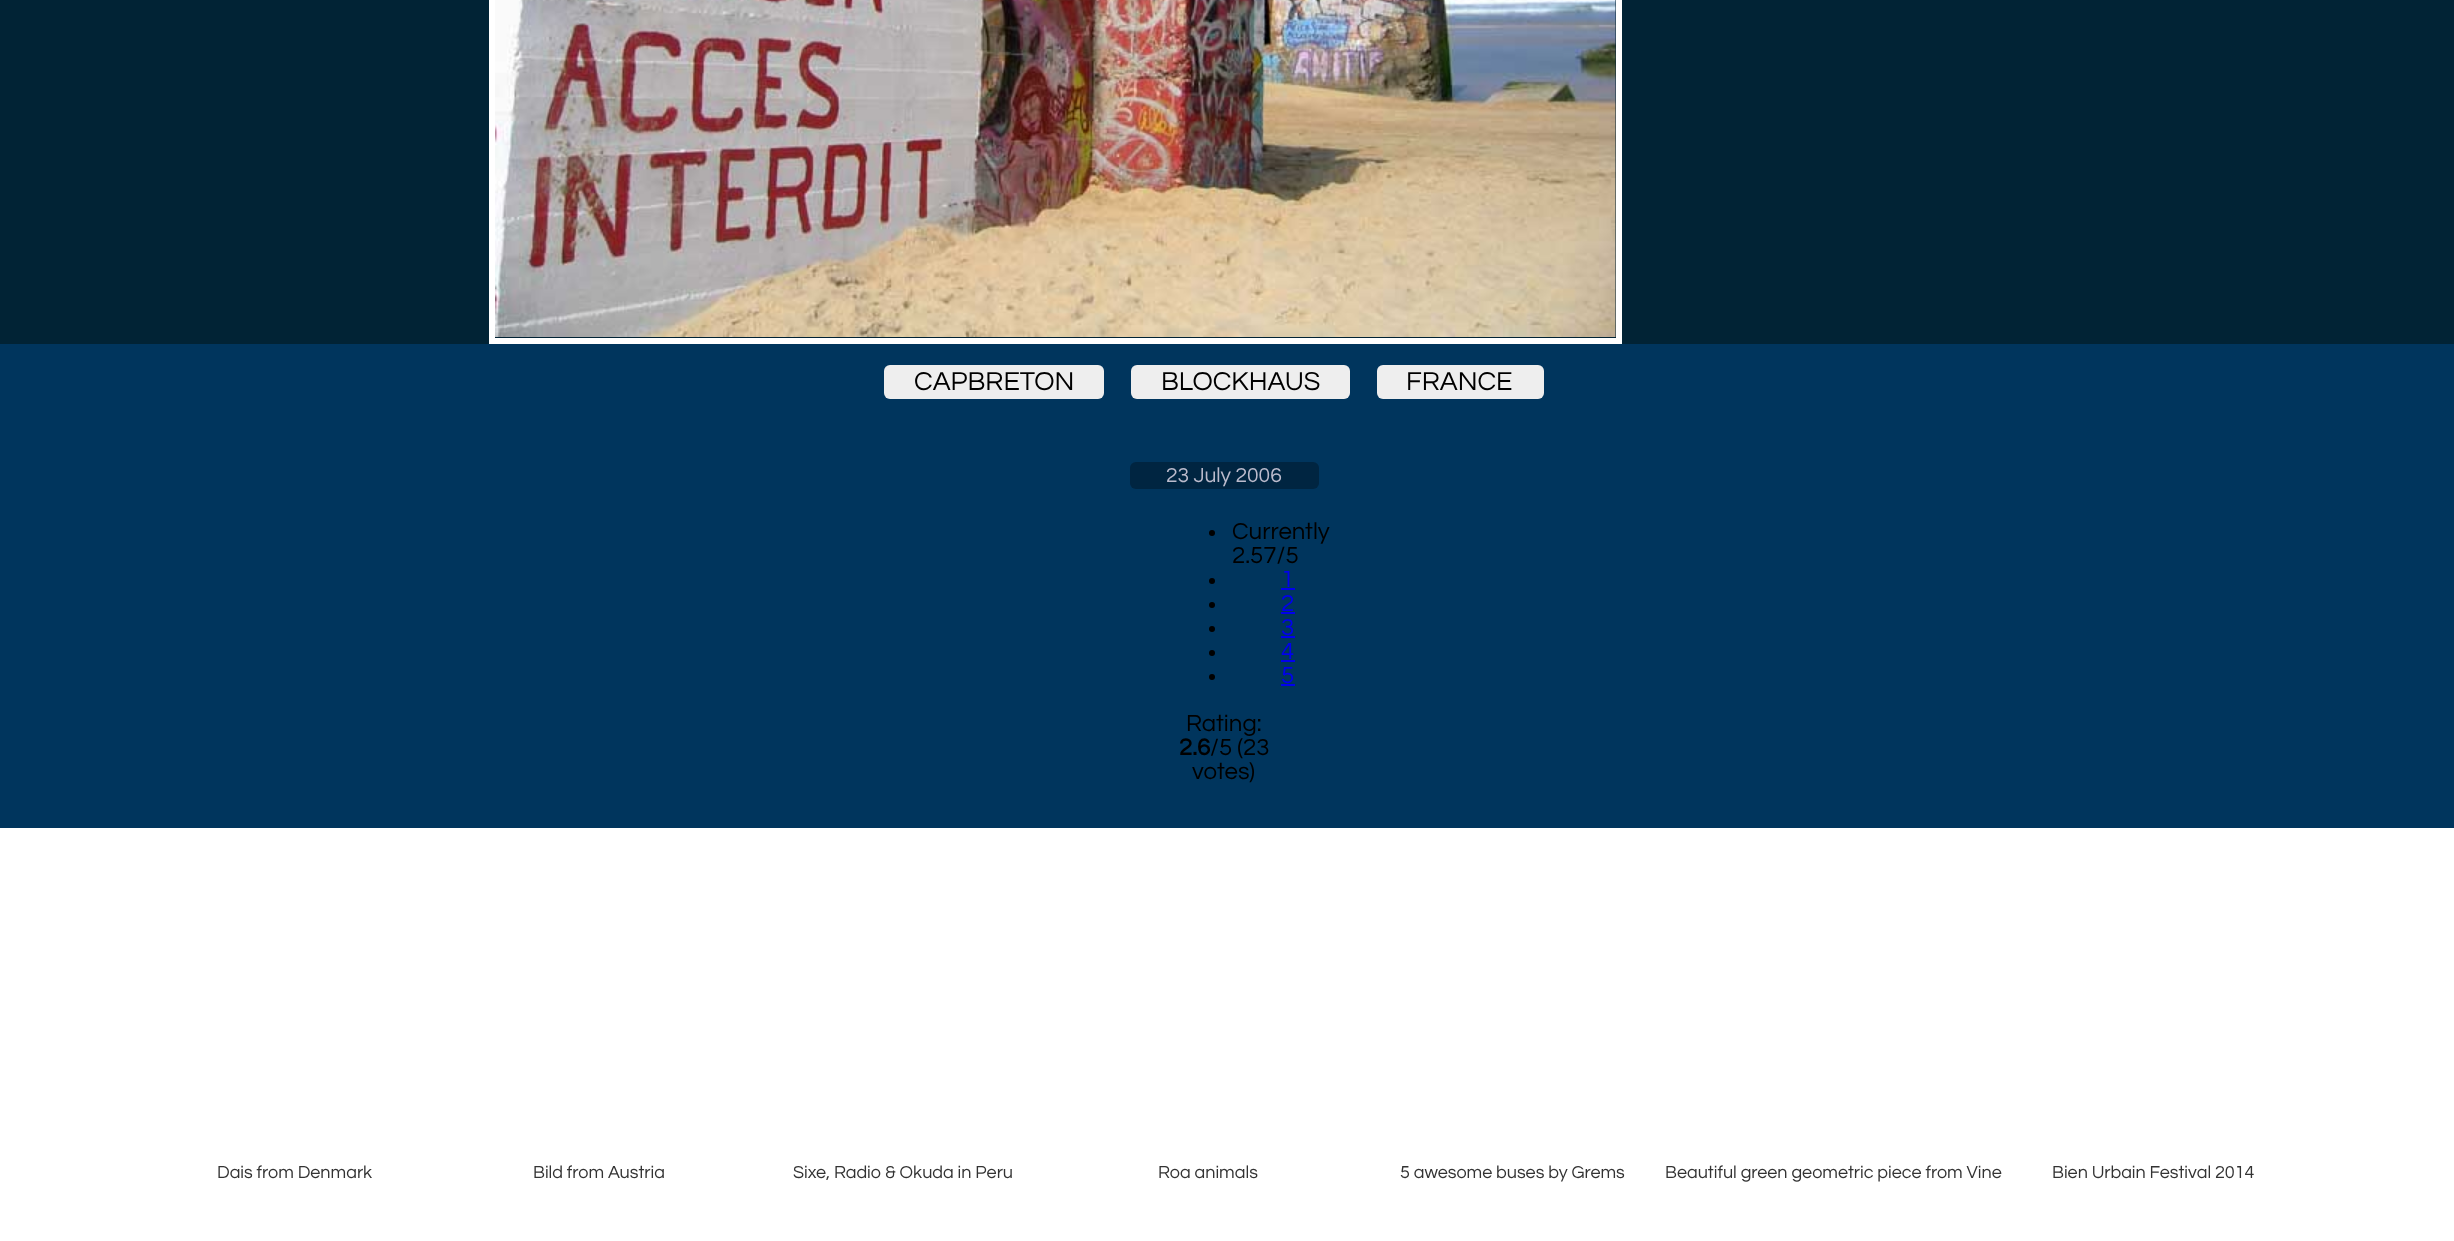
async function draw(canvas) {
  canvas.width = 2454
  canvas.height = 1241
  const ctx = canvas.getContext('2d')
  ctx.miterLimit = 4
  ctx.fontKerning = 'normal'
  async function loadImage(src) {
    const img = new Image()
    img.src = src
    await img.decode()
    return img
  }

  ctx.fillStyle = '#012335'
  ctx.fillRect(0, 0, 2454, 1241)
  ctx.strokeStyle = '#fff'
  ctx.lineWidth = 6
  ctx.strokeRect(492, -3, 1127, 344)
  ctx.drawImage(await loadImage('image0.png'), 495, 0, 1121, 337)
  ctx.fillStyle = '#00355d'
  ctx.fillRect(0, 344, 2454, 484)
  ctx.fillStyle = '#eee'
  ctx.beginPath()
  ctx.roundRect(884, 365, 220, 34, 6)
  ctx.fill()
  ctx.font = '27px Questrial'
  ctx.fillStyle = '#000'
  ctx.fillText('CAPBRETON', 914, 390)
  ctx.fillStyle = '#eee'
  ctx.beginPath()
  ctx.roundRect(1131, 365, 219, 34, 6)
  ctx.fill()
  ctx.fillStyle = '#000'
  ctx.fillText('BLOCKHAUS', 1161, 390)
  ctx.fillStyle = '#eee'
  ctx.beginPath()
  ctx.roundRect(1377, 365, 167, 34, 6)
  ctx.fill()
  ctx.fillStyle = '#000'
  ctx.fillText('FRANCE', 1406, 390)
  ctx.fillStyle = '#002541'
  ctx.beginPath()
  ctx.roundRect(1130, 462, 189, 27, 6)
  ctx.fill()
  ctx.font = '21px Questrial'
  ctx.fillStyle = '#bbc'
  ctx.fillText('23 July 2006', 1166, 482)
  ctx.fillStyle = '#000'
  ctx.beginPath()
  ctx.arc(1212, 533, 3, 0, 2 * Math.PI)
  ctx.fill()
  ctx.font = '24px Questrial'
  ctx.fillText('Currently', 1232, 539)
  ctx.fillText('2.57/5', 1232, 563)
  ctx.beginPath()
  ctx.arc(1212, 581, 3, 0, 2 * Math.PI)
  ctx.fill()
  ctx.fillStyle = '#00e'
  ctx.fillText('1', 1281, 587)
  ctx.fillRect(1281, 588, 14, 2)
  ctx.fillStyle = '#000'
  ctx.beginPath()
  ctx.arc(1212, 605, 3, 0, 2 * Math.PI)
  ctx.fill()
  ctx.fillStyle = '#00e'
  ctx.fillText('2', 1281, 611)
  ctx.fillRect(1281, 612, 14, 2)
  ctx.fillStyle = '#000'
  ctx.beginPath()
  ctx.arc(1212, 629, 3, 0, 2 * Math.PI)
  ctx.fill()
  ctx.fillStyle = '#00e'
  ctx.fillText('3', 1281, 635)
  ctx.fillRect(1281, 636, 14, 2)
  ctx.fillStyle = '#000'
  ctx.beginPath()
  ctx.arc(1212, 653, 3, 0, 2 * Math.PI)
  ctx.fill()
  ctx.fillStyle = '#00e'
  ctx.fillText('4', 1281, 659)
  ctx.fillRect(1281, 660, 14, 2)
  ctx.fillStyle = '#000'
  ctx.beginPath()
  ctx.arc(1212, 677, 3, 0, 2 * Math.PI)
  ctx.fill()
  ctx.fillStyle = '#00e'
  ctx.fillText('5', 1281, 683)
  ctx.fillRect(1281, 684, 14, 2)
  ctx.fillStyle = '#000'
  ctx.fillText('Rating:', 1186, 731)
  ctx.font = 'bold 24px Questrial'
  ctx.fillText('2.6', 1179, 755)
  ctx.font = '24px Questrial'
  ctx.fillText('/5 (23', 1210, 755)
  ctx.fillText('votes)', 1192, 779)
  ctx.fillStyle = '#fff'
  ctx.fillRect(0, 828, 2454, 413)
  ctx.font = '18px Questrial'
  ctx.fillStyle = '#333'
  ctx.fillText('Dais from Denmark', 217, 1178)
  ctx.fillText('Bild from Austria', 533, 1178)
  ctx.fillText('Sixe, Radio & Okuda in Peru', 793, 1178)
  ctx.fillText('Roa animals', 1158, 1178)
  ctx.fillText('5 awesome buses by Grems', 1400, 1178)
  ctx.fillText('Beautiful green geometric piece from Vine', 1665, 1178)
  ctx.fillText('Bien Urbain Festival 2014', 2052, 1178)
}

draw(document.querySelector('canvas'))
